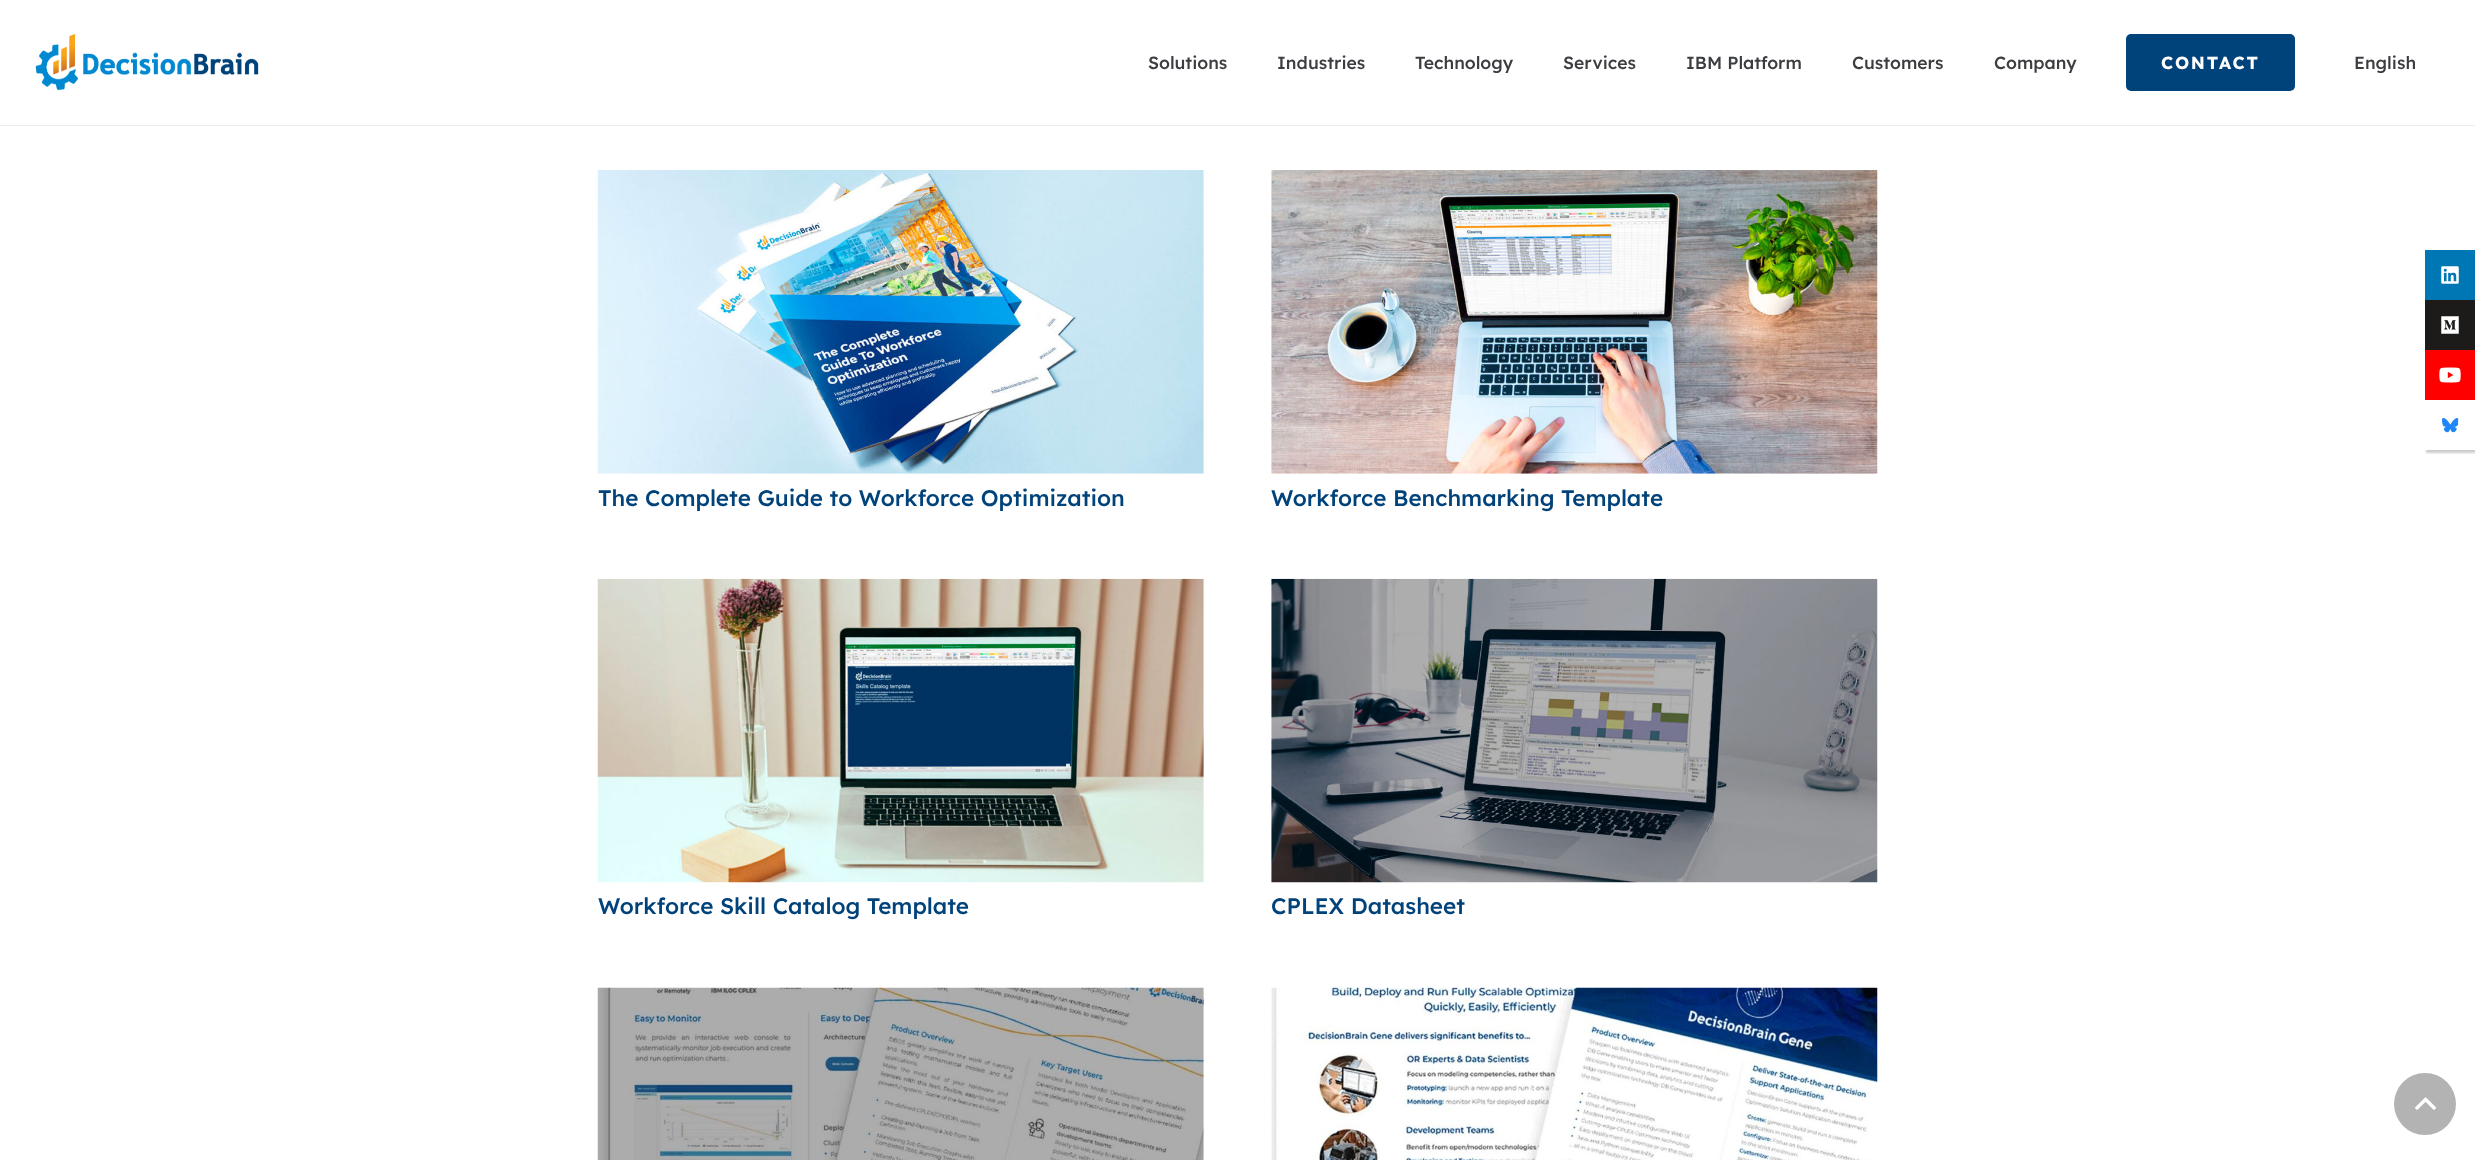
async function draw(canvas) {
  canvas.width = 2475
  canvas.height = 1160
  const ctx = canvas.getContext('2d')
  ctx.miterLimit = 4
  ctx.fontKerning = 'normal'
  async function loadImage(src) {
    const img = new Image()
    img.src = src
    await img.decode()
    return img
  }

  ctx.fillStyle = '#fff'
  ctx.fillRect(0, 0, 2475, 1160)
  ctx.fillStyle = '#ebebeb'
  ctx.fillRect(0, 125, 2475, 1)
  ctx.drawImage(await loadImage('image0.png'), 35, 34, 224, 57)
  ctx.font = '500 17.5px Lexend Deca'
  ctx.fillStyle = '#3b3d40'
  ctx.fillText('Solutions', 1148, 69)
  ctx.fillText('Industries', 1277, 69)
  ctx.fillText('Technology', 1415, 69)
  ctx.fillText('Services', 1563, 69)
  ctx.fillText('IBM Platform', 1686, 69)
  ctx.fillText('Customers', 1852, 69)
  ctx.fillText('Company', 1994, 69)
  ctx.fillStyle = '#00427a'
  ctx.beginPath()
  ctx.roundRect(2126, 34, 169, 57, 5)
  ctx.fill()
  ctx.letterSpacing = '1.75px'
  ctx.font = 'bold 17.5px Lexend Deca'
  ctx.fillStyle = '#fff'
  ctx.fillText('CONTACT', 2161, 69)
  ctx.letterSpacing = '0px'
  ctx.font = '500 17.5px Lexend Deca'
  ctx.fillStyle = '#3b3d40'
  ctx.fillText('English', 2354, 69)
  ctx.drawImage(await loadImage('image1.png'), 597, 170, 607, 304)
  ctx.font = '500 22.5px Lexend Deca'
  ctx.fillStyle = '#00427a'
  ctx.fillText('The Complete Guide to Workforce Optimization', 598, 506)
  ctx.drawImage(await loadImage('image2.png'), 1271, 170, 607, 304)
  ctx.fillText('Workforce Benchmarking Template', 1271, 506)
  ctx.drawImage(await loadImage('image3.png'), 597, 578, 607, 305)
  ctx.fillText('Workforce Skill Catalog Template', 598, 914)
  ctx.drawImage(await loadImage('image4.png'), 1271, 578, 607, 305)
  ctx.fillText('CPLEX Datasheet', 1271, 914)
  ctx.drawImage(await loadImage('image5.png'), 597, 987, 607, 173)
  ctx.drawImage(await loadImage('image6.png'), 1271, 987, 607, 173)
  ctx.save()
  ctx.beginPath()
  ctx.rect(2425, 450, 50, 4)
  ctx.clip()
  ctx.fillStyle = '#00000033'
  ctx.filter = 'blur(1px)'
  ctx.beginPath()
  ctx.rect(2426, 253, 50, 200)
  ctx.fill()
  ctx.filter = 'none'
  ctx.restore()
  ctx.fillStyle = '#0077b5'
  ctx.fillRect(2425, 250, 50, 50)
  ctx.drawImage(await loadImage('image7.png'), 2441, 266, 18, 18)
  ctx.fillStyle = '#1c1b1a'
  ctx.fillRect(2425, 300, 50, 50)
  ctx.drawImage(await loadImage('image8.png'), 2441, 316, 18, 18)
  ctx.fillStyle = '#f00'
  ctx.fillRect(2425, 350, 50, 50)
  ctx.drawImage(await loadImage('image9.png'), 2439, 367, 22, 16)
  ctx.drawImage(await loadImage('image10.png'), 2441, 418, 18, 15)
  ctx.fillStyle = '#b3b3b3'
  ctx.beginPath()
  ctx.arc(2425, 1104, 31, 0, 2 * Math.PI)
  ctx.fill()
  ctx.drawImage(await loadImage('image11.png'), 2415, 1097, 21, 13)
}

draw(document.querySelector('canvas'))
